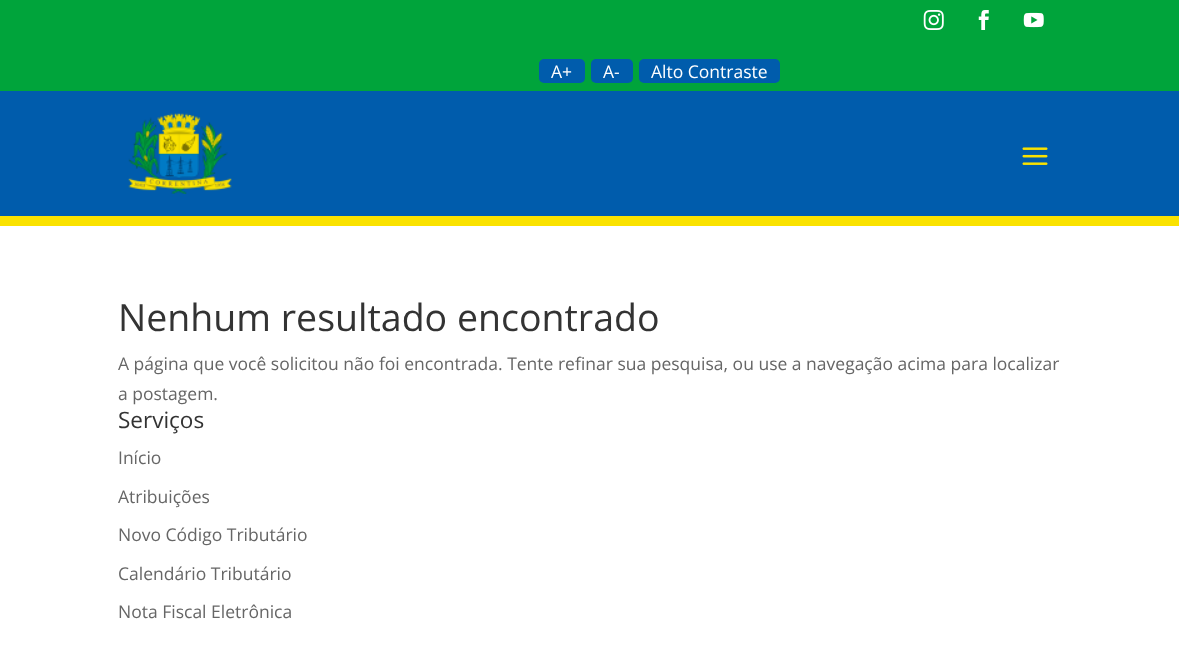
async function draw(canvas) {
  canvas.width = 1179
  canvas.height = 651
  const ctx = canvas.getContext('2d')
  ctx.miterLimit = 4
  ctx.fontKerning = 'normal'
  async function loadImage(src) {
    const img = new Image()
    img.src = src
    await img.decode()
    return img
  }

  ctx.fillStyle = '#fff'
  ctx.fillRect(0, 0, 1179, 651)
  ctx.fillStyle = '#00a43b'
  ctx.fillRect(0, 0, 1179, 91)
  ctx.drawImage(await loadImage('image0.png'), 923, 10, 21, 20)
  ctx.drawImage(await loadImage('image1.png'), 978, 10, 11, 20)
  ctx.drawImage(await loadImage('image2.png'), 1023, 12, 21, 16)
  ctx.fillStyle = '#005cac'
  ctx.beginPath()
  ctx.roundRect(539, 59, 46, 24, 5)
  ctx.fill()
  ctx.font = '17.5px Open Sans'
  ctx.fillStyle = '#fff'
  ctx.fillText('A+', 551, 78)
  ctx.fillStyle = '#005cac'
  ctx.beginPath()
  ctx.roundRect(591, 59, 42, 24, 5)
  ctx.fill()
  ctx.fillStyle = '#fff'
  ctx.fillText('A-', 603, 78)
  ctx.fillStyle = '#005cac'
  ctx.beginPath()
  ctx.roundRect(639, 59, 141, 24, 5)
  ctx.fill()
  ctx.fillStyle = '#fff'
  ctx.fillText('Alto Contraste', 651, 78)
  ctx.fillStyle = '#005cac'
  ctx.fillRect(0, 91, 1179, 125)
  ctx.fillStyle = '#fae200'
  ctx.fillRect(0, 216, 1179, 10)
  ctx.drawImage(await loadImage('image3.png'), 128, 113, 104, 81)
  ctx.drawImage(await loadImage('image4.png'), 1022, 147, 26, 18)
  ctx.font = '37.5px Open Sans'
  ctx.fillStyle = '#333'
  ctx.fillText('Nenhum resultado encontrado', 118, 331)
  ctx.font = '17.5px Open Sans'
  ctx.fillStyle = '#666'
  ctx.fillText('A página que você solicitou não foi encontrada. Tente refinar sua pesquisa, ou use a navegação acima para localizar', 118, 370)
  ctx.fillText('a postagem.', 118, 400)
  ctx.font = '22.5px Open Sans'
  ctx.fillStyle = '#333'
  ctx.fillText('Serviços', 118, 428)
  ctx.font = '17.5px Open Sans'
  ctx.fillStyle = '#666'
  ctx.fillText('Início', 118, 464)
  ctx.fillText('Atribuições', 118, 503)
  ctx.fillText('Novo Código Tributário', 118, 541)
  ctx.fillText('Calendário Tributário', 118, 580)
  ctx.fillText('Nota Fiscal Eletrônica', 118, 618)
}

draw(document.querySelector('canvas'))
